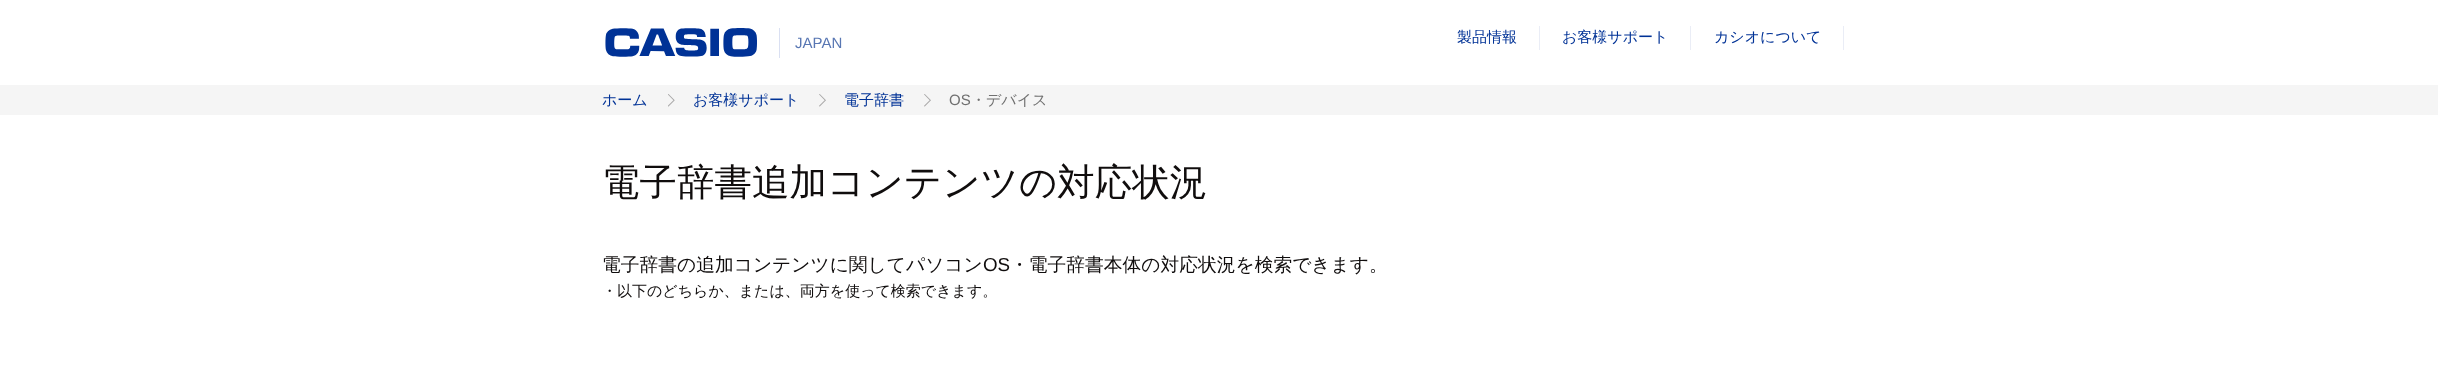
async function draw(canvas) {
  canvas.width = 2438
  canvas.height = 368
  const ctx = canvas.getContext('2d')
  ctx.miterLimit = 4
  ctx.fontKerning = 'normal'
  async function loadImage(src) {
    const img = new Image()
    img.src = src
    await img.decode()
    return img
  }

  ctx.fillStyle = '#fff'
  ctx.fillRect(0, 0, 2438, 368)
  ctx.drawImage(await loadImage('image0.png'), 605, 28, 152, 29)
  ctx.fillStyle = '#dae0f2'
  ctx.fillRect(779, 28, 1, 30)
  ctx.font = '15px Liberation Sans'
  ctx.fillStyle = '#5977b3'
  ctx.fillText('JAPAN', 795, 48)
  ctx.font = '500 15px WenQuanYi Zen Hei'
  ctx.fillStyle = '#003296'
  ctx.fillText('製品情報', 1457, 42)
  ctx.fillStyle = '#eaedf6'
  ctx.fillRect(1539, 26, 1, 24)
  ctx.fillStyle = '#003296'
  ctx.fillText('お客様サポート', 1562, 42)
  ctx.fillStyle = '#eaedf6'
  ctx.fillRect(1690, 26, 1, 24)
  ctx.fillStyle = '#003296'
  ctx.fillText('カシオについて', 1714, 42)
  ctx.fillStyle = '#eaedf6'
  ctx.fillRect(1843, 26, 1, 24)
  ctx.fillStyle = '#f5f5f5'
  ctx.fillRect(0, 85, 2438, 30)
  ctx.fillStyle = '#003296'
  ctx.fillText('ホーム', 602, 105)
  ctx.drawImage(await loadImage('image1.png'), 668, 94, 7, 13)
  ctx.fillText('お客様サポート', 693, 105)
  ctx.drawImage(await loadImage('image2.png'), 819, 94, 7, 13)
  ctx.fillText('電子辞書', 844, 105)
  ctx.drawImage(await loadImage('image2.png'), 924, 94, 7, 13)
  ctx.font = '15px Liberation Sans'
  ctx.fillStyle = '#707070'
  ctx.fillText('OS', 949, 105)
  ctx.font = '500 15px WenQuanYi Zen Hei'
  ctx.fillText('・デバイス', 971, 105)
  ctx.font = '500 37.5px WenQuanYi Zen Hei'
  ctx.fillStyle = '#100d0d'
  ctx.fillText('電子辞書追加コンテンツの対応状況', 602, 195)
  ctx.font = '500 18.75px WenQuanYi Zen Hei'
  ctx.fillText('電子辞書の追加コンテンツに関してパソコン', 602, 271)
  ctx.font = '18.75px Liberation Sans'
  ctx.fillText('OS', 983, 271)
  ctx.font = '500 18.75px WenQuanYi Zen Hei'
  ctx.fillText('・電子辞書本体の対応状況を検索できます。', 1010, 271)
  ctx.font = '500 15px WenQuanYi Zen Hei'
  ctx.fillText('・以下のどちらか、または、両方を使って検索できます。', 602, 296)
}

draw(document.querySelector('canvas'))
